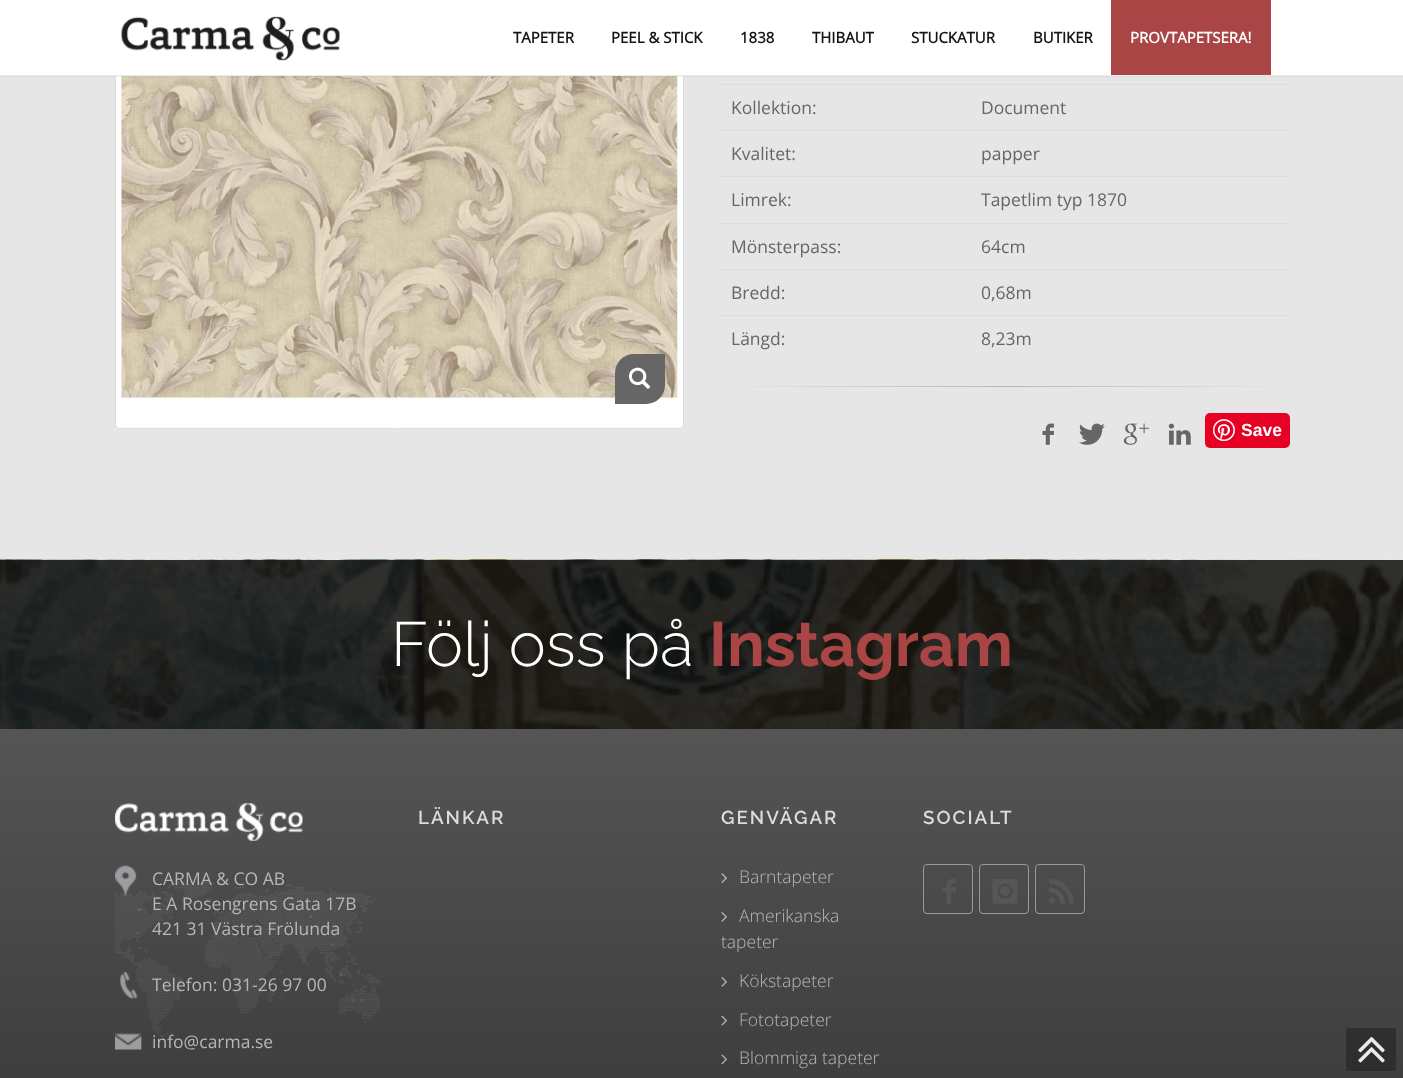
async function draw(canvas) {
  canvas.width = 1403
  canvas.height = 1078
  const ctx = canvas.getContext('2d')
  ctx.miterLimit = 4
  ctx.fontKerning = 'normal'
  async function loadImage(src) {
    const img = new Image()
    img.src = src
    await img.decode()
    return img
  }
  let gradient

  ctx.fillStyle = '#e6e6e6'
  ctx.fillRect(0, 0, 1403, 1078)
  ctx.fillStyle = '#fff'
  ctx.beginPath()
  ctx.roundRect(115.5, -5.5, 568, 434, 4.5)
  ctx.fill()
  ctx.strokeStyle = '#ddd'
  ctx.stroke()
  ctx.drawImage(await loadImage('image1.png'), 121, 76, 557, 324)
  ctx.fillStyle = '#0000001a'
  ctx.filter = 'blur(1px)'
  ctx.beginPath()
  ctx.rect(0, 0, 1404, 76)
  ctx.fill()
  ctx.filter = 'none'
  ctx.fillStyle = '#fff'
  ctx.fillRect(0, 0, 1403, 75)
  ctx.fillStyle = '#ebebeb'
  ctx.fillRect(0, 75, 1403, 1)
  ctx.drawImage(await loadImage('image0.png'), 121, 16, 219, 45)
  ctx.font = 'bold 15px Open Sans'
  ctx.fillStyle = '#151515'
  ctx.fillText('TAPETER', 513, 43)
  ctx.fillText('PEEL & STICK', 611, 43)
  ctx.fillText('1838', 740, 43)
  ctx.fillText('THIBAUT', 812, 43)
  ctx.fillText('STUCKATUR', 911, 43)
  ctx.fillText('BUTIKER', 1033, 43)
  ctx.fillStyle = '#a94545'
  ctx.fillRect(1111, 0, 160, 75)
  ctx.fillStyle = '#fff'
  ctx.fillText('PROVTAPETSERA!', 1130, 43)
  ctx.fillStyle = '#666'
  ctx.beginPath()
  ctx.roundRect(615, 354, 50, 50, [19, 0, 19, 0])
  ctx.fill()
  ctx.drawImage(await loadImage('image2.png'), 628, 367, 23, 22)
  ctx.font = '17.5px Open Sans'
  ctx.fillText('Kollektion:', 731, 114)
  ctx.fillStyle = '#ddd'
  ctx.fillRect(720, 84, 570, 1)
  ctx.fillStyle = '#666'
  ctx.fillText('Document', 981, 114)
  ctx.fillText('Kvalitet:', 731, 160)
  ctx.fillStyle = '#ddd'
  ctx.fillRect(720, 130, 570, 1)
  ctx.fillStyle = '#666'
  ctx.fillText('papper', 981, 160)
  ctx.fillText('Limrek:', 731, 206)
  ctx.fillStyle = '#ddd'
  ctx.fillRect(720, 176, 570, 1)
  ctx.fillStyle = '#666'
  ctx.fillText('Tapetlim typ 1870', 981, 206)
  ctx.fillText('Mönsterpass:', 731, 253)
  ctx.fillStyle = '#ddd'
  ctx.fillRect(720, 223, 570, 1)
  ctx.fillStyle = '#666'
  ctx.fillText('64cm', 981, 253)
  ctx.fillText('Bredd:', 731, 299)
  ctx.fillStyle = '#ddd'
  ctx.fillRect(720, 269, 570, 1)
  ctx.fillStyle = '#666'
  ctx.fillText('0,68m', 981, 299)
  ctx.fillText('Längd:', 731, 345)
  ctx.fillStyle = '#ddd'
  ctx.fillRect(720, 315, 570, 1)
  ctx.fillStyle = '#666'
  ctx.fillText('8,23m', 981, 345)
  gradient = ctx.createLinearGradient(721, 387, 1290, 387)
  gradient.addColorStop(0, '#e6e6e6')
  gradient.addColorStop(0.5, '#b8b8b8')
  gradient.addColorStop(1, '#e6e6e6')
  ctx.fillStyle = gradient
  ctx.fillRect(736, 386, 539, 1)
  ctx.drawImage(await loadImage('image3.png'), 1042, 423, 12, 22)
  ctx.drawImage(await loadImage('image4.png'), 1079, 423, 26, 22)
  ctx.drawImage(await loadImage('image5.png'), 1123, 423, 26, 22)
  ctx.drawImage(await loadImage('image6.png'), 1168, 423, 23, 22)
  ctx.fillStyle = '#e60023'
  ctx.beginPath()
  ctx.roundRect(1205, 413, 85, 35, 5)
  ctx.fill()
  ctx.drawImage(await loadImage('image7.png'), 1213, 419, 22, 22)
  ctx.font = 'bold 17.5px Liberation Sans'
  ctx.fillStyle = '#fff'
  ctx.fillText('Save', 1241, 436)
  ctx.drawImage(await loadImage('image8.png'), 0, 559, 1403, 170)
  ctx.font = '300 62.5px Raleway'
  ctx.fillText('Följ oss på', 391, 666)
  ctx.font = 'bold 62.5px Raleway'
  ctx.fillStyle = '#a94545'
  ctx.fillText('Instagram', 709, 666)
  gradient = ctx.createLinearGradient(702, 729, 702, 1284)
  gradient.addColorStop(0, '#555')
  gradient.addColorStop(1, '#313131')
  ctx.fillStyle = gradient
  ctx.fillRect(0, 729, 1403, 349)
  ctx.letterSpacing = '2px'
  ctx.font = '600 18.75px Raleway'
  ctx.fillStyle = '#dcdcdc'
  ctx.fillText('LÄNKAR', 418, 824)
  ctx.fillText('GENVÄGAR', 721, 824)
  ctx.drawImage(await loadImage('image9.png'), 721, 873, 6, 10)
  ctx.letterSpacing = '0px'
  ctx.font = '300 17.5px Open Sans'
  ctx.fillStyle = '#b7b7b7'
  ctx.fillText('Barntapeter', 739, 883)
  ctx.drawImage(await loadImage('image10.png'), 721, 912, 6, 10)
  ctx.fillText('Amerikanska', 739, 922)
  ctx.fillText('tapeter', 721, 948)
  ctx.drawImage(await loadImage('image11.png'), 721, 977, 6, 10)
  ctx.fillText('Kökstapeter', 739, 987)
  ctx.drawImage(await loadImage('image12.png'), 721, 1015, 6, 11)
  ctx.fillText('Fototapeter', 739, 1026)
  ctx.drawImage(await loadImage('image13.png'), 721, 1054, 6, 11)
  ctx.fillText('Blommiga tapeter', 739, 1064)
  ctx.letterSpacing = '2px'
  ctx.font = '600 18.75px Raleway'
  ctx.fillStyle = '#dcdcdc'
  ctx.fillText('SOCIALT', 923, 824)
  ctx.beginPath()
  ctx.roundRect(923.5, 864.5, 49, 49, 3.5)
  ctx.strokeStyle = '#999'
  ctx.stroke()
  ctx.drawImage(await loadImage('image14.png'), 942, 879, 14, 25)
  ctx.beginPath()
  ctx.roundRect(979.5, 864.5, 49, 49, 3.5)
  ctx.stroke()
  ctx.drawImage(await loadImage('image15.png'), 992, 879, 26, 25)
  ctx.beginPath()
  ctx.roundRect(1035.5, 864.5, 49, 49, 3.5)
  ctx.stroke()
  ctx.drawImage(await loadImage('image16.png'), 1049, 879, 25, 25)
  ctx.drawImage(await loadImage('image17.png'), 115, 803, 188, 38)
  ctx.drawImage(await loadImage('image18.png'), 115, 882, 265, 155)
  ctx.drawImage(await loadImage('image19.png'), 115, 865, 25, 32)
  ctx.letterSpacing = '0px'
  ctx.font = '17.5px Open Sans'
  ctx.fillStyle = '#b7b7b7'
  ctx.fillText('CARMA & CO AB', 152, 885)
  ctx.fillText('E A Rosengrens Gata 17B', 152, 910)
  ctx.fillText('421 31 Västra Frölunda', 152, 935)
  ctx.drawImage(await loadImage('image20.png'), 120, 971, 18, 28)
  ctx.fillText('Telefon: 031-26 97 00', 152, 991)
  ctx.drawImage(await loadImage('image21.png'), 115, 1033, 27, 17)
  ctx.fillText('info@carma.se', 152, 1048)
  ctx.fillStyle = '#00000045'
  ctx.beginPath()
  ctx.roundRect(1346, 1028, 50, 43, 2.5)
  ctx.fill()
  ctx.drawImage(await loadImage('image22.png'), 1358, 1037, 27, 26)
}

draw(document.querySelector('canvas'))
